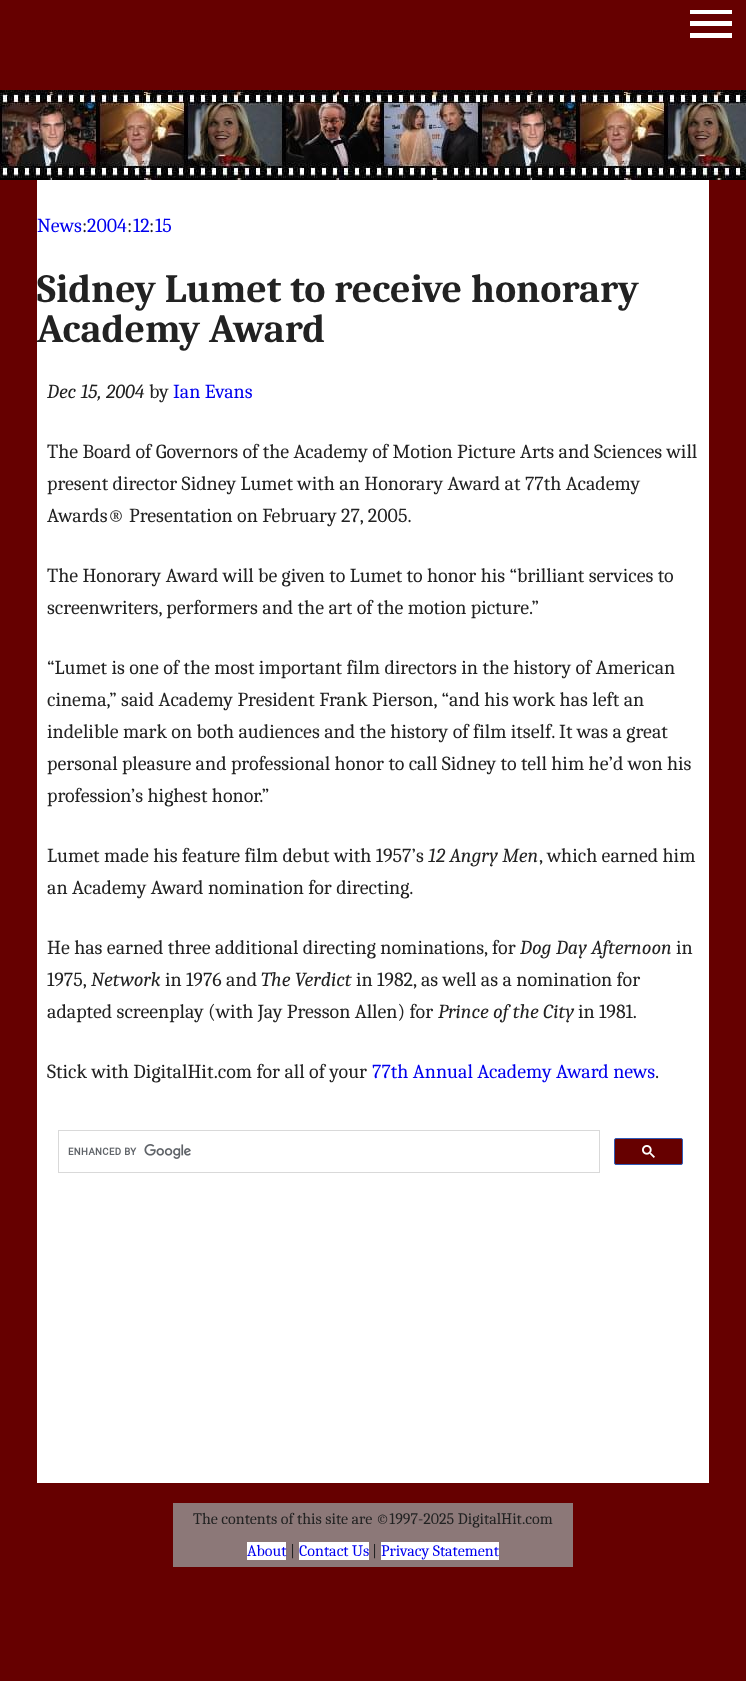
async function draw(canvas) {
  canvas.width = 746
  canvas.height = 1681
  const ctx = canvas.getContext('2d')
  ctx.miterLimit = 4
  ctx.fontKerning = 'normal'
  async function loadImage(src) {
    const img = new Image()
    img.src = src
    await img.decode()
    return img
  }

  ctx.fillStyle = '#600'
  ctx.fillRect(0, 0, 746, 1681)
  ctx.fillStyle = '#fff'
  ctx.fillRect(690, 10, 42, 4)
  ctx.fillRect(690, 21, 42, 5)
  ctx.fillRect(690, 33, 42, 5)
  ctx.drawImage(await loadImage('image0.png'), 0, 90, 746, 90)
  ctx.fillRect(37, 180, 672, 1303)
  ctx.font = '20px Caladea'
  ctx.fillStyle = '#00e'
  ctx.fillText('News', 37, 232)
  ctx.fillStyle = '#222'
  ctx.fillText(':', 82, 232)
  ctx.fillStyle = '#00e'
  ctx.fillText('2004', 87, 232)
  ctx.fillStyle = '#222'
  ctx.fillText(':', 127, 232)
  ctx.fillStyle = '#00e'
  ctx.fillText('12', 133, 232)
  ctx.fillStyle = '#222'
  ctx.fillText(':', 149, 232)
  ctx.fillStyle = '#00e'
  ctx.fillText('15', 155, 232)
  ctx.font = 'bold 40px Caladea'
  ctx.fillStyle = '#222'
  ctx.fillText('Sidney Lumet to receive honorary', 37, 302)
  ctx.fillText('Academy Award', 37, 342)
  ctx.font = 'italic 20px Caladea'
  ctx.fillText('Dec 15, 2004', 47, 398)
  ctx.font = '20px Caladea'
  ctx.fillText('by', 149, 398)
  ctx.fillStyle = '#00e'
  ctx.fillText('Ian Evans', 173, 398)
  ctx.fillStyle = '#222'
  ctx.fillText('The Board of Governors of the Academy of Motion Picture Arts and Sciences will', 47, 458)
  ctx.fillText('present director Sidney Lumet with an Honorary Award at 77th Academy', 47, 490)
  ctx.fillText('Awards® Presentation on February 27, 2005.', 47, 522)
  ctx.fillText('The Honorary Award will be given to Lumet to honor his “brilliant services to', 47, 582)
  ctx.fillText('screenwriters, performers and the art of the motion picture.”', 47, 614)
  ctx.fillText('“Lumet is one of the most important film directors in the history of American', 47, 674)
  ctx.fillText('cinema,” said Academy President Frank Pierson, “and his work has left an', 47, 706)
  ctx.fillText('indelible mark on both audiences and the history of film itself. It was a great', 47, 738)
  ctx.fillText('personal pleasure and professional honor to call Sidney to tell him he’d won his', 47, 770)
  ctx.fillText('profession’s highest honor.”', 47, 802)
  ctx.fillText('Lumet made his feature film debut with 1957’s', 47, 862)
  ctx.font = 'italic 20px Caladea'
  ctx.fillText('12 Angry Men', 428, 862)
  ctx.font = '20px Caladea'
  ctx.fillText(', which earned him', 539, 862)
  ctx.fillText('an Academy Award nomination for directing.', 47, 894)
  ctx.fillText('He has earned three additional directing nominations, for', 47, 954)
  ctx.font = 'italic 20px Caladea'
  ctx.fillText('Dog Day Afternoon', 520, 954)
  ctx.font = '20px Caladea'
  ctx.fillText('in', 676, 954)
  ctx.fillText('1975,', 47, 986)
  ctx.font = 'italic 20px Caladea'
  ctx.fillText('Network', 91, 986)
  ctx.font = '20px Caladea'
  ctx.fillText('in 1976 and', 165, 986)
  ctx.font = 'italic 20px Caladea'
  ctx.fillText('The Verdict', 261, 986)
  ctx.font = '20px Caladea'
  ctx.fillText('in 1982, as well as a nomination for', 356, 986)
  ctx.fillText('adapted screenplay (with Jay Presson Allen) for', 47, 1018)
  ctx.font = 'italic 20px Caladea'
  ctx.fillText('Prince of the City', 438, 1018)
  ctx.font = '20px Caladea'
  ctx.fillText('in 1981.', 578, 1018)
  ctx.fillText('Stick with DigitalHit.com for all of your', 47, 1078)
  ctx.fillStyle = '#00e'
  ctx.fillText('77th Annual Academy Award news', 372, 1078)
  ctx.fillStyle = '#222'
  ctx.fillText('.', 655, 1078)
  ctx.strokeStyle = '#d9d9d9'
  ctx.strokeRect(58.5, 1130.5, 541, 42)
  ctx.drawImage(await loadImage('image1.png'), 68, 1144, 123, 15)
  ctx.fillStyle = '#600'
  ctx.beginPath()
  ctx.roundRect(614.5, 1138.5, 68, 26, 1.5)
  ctx.fill()
  ctx.strokeStyle = '#2f5bb7'
  ctx.stroke()
  ctx.drawImage(await loadImage('image2.png'), 642, 1145, 13, 13)
  ctx.fillStyle = '#8c7878'
  ctx.fillRect(173, 1503, 400, 64)
  ctx.font = '16px Caladea'
  ctx.fillStyle = '#222'
  ctx.fillText('The contents of this site are ©1997-2025 DigitalHit.com', 193, 1524)
  ctx.fillStyle = '#fff'
  ctx.fillRect(247, 1542, 39, 18)
  ctx.fillStyle = '#00e'
  ctx.fillText('About', 247, 1556)
  ctx.fillStyle = '#222'
  ctx.fillText('|', 290, 1556)
  ctx.fillStyle = '#fff'
  ctx.fillRect(299, 1542, 70, 18)
  ctx.fillStyle = '#00e'
  ctx.fillText('Contact Us', 299, 1556)
  ctx.fillStyle = '#222'
  ctx.fillText('|', 372, 1556)
  ctx.fillStyle = '#fff'
  ctx.fillRect(381, 1542, 118, 18)
  ctx.fillStyle = '#00e'
  ctx.fillText('Privacy Statement', 381, 1556)
}

draw(document.querySelector('canvas'))
